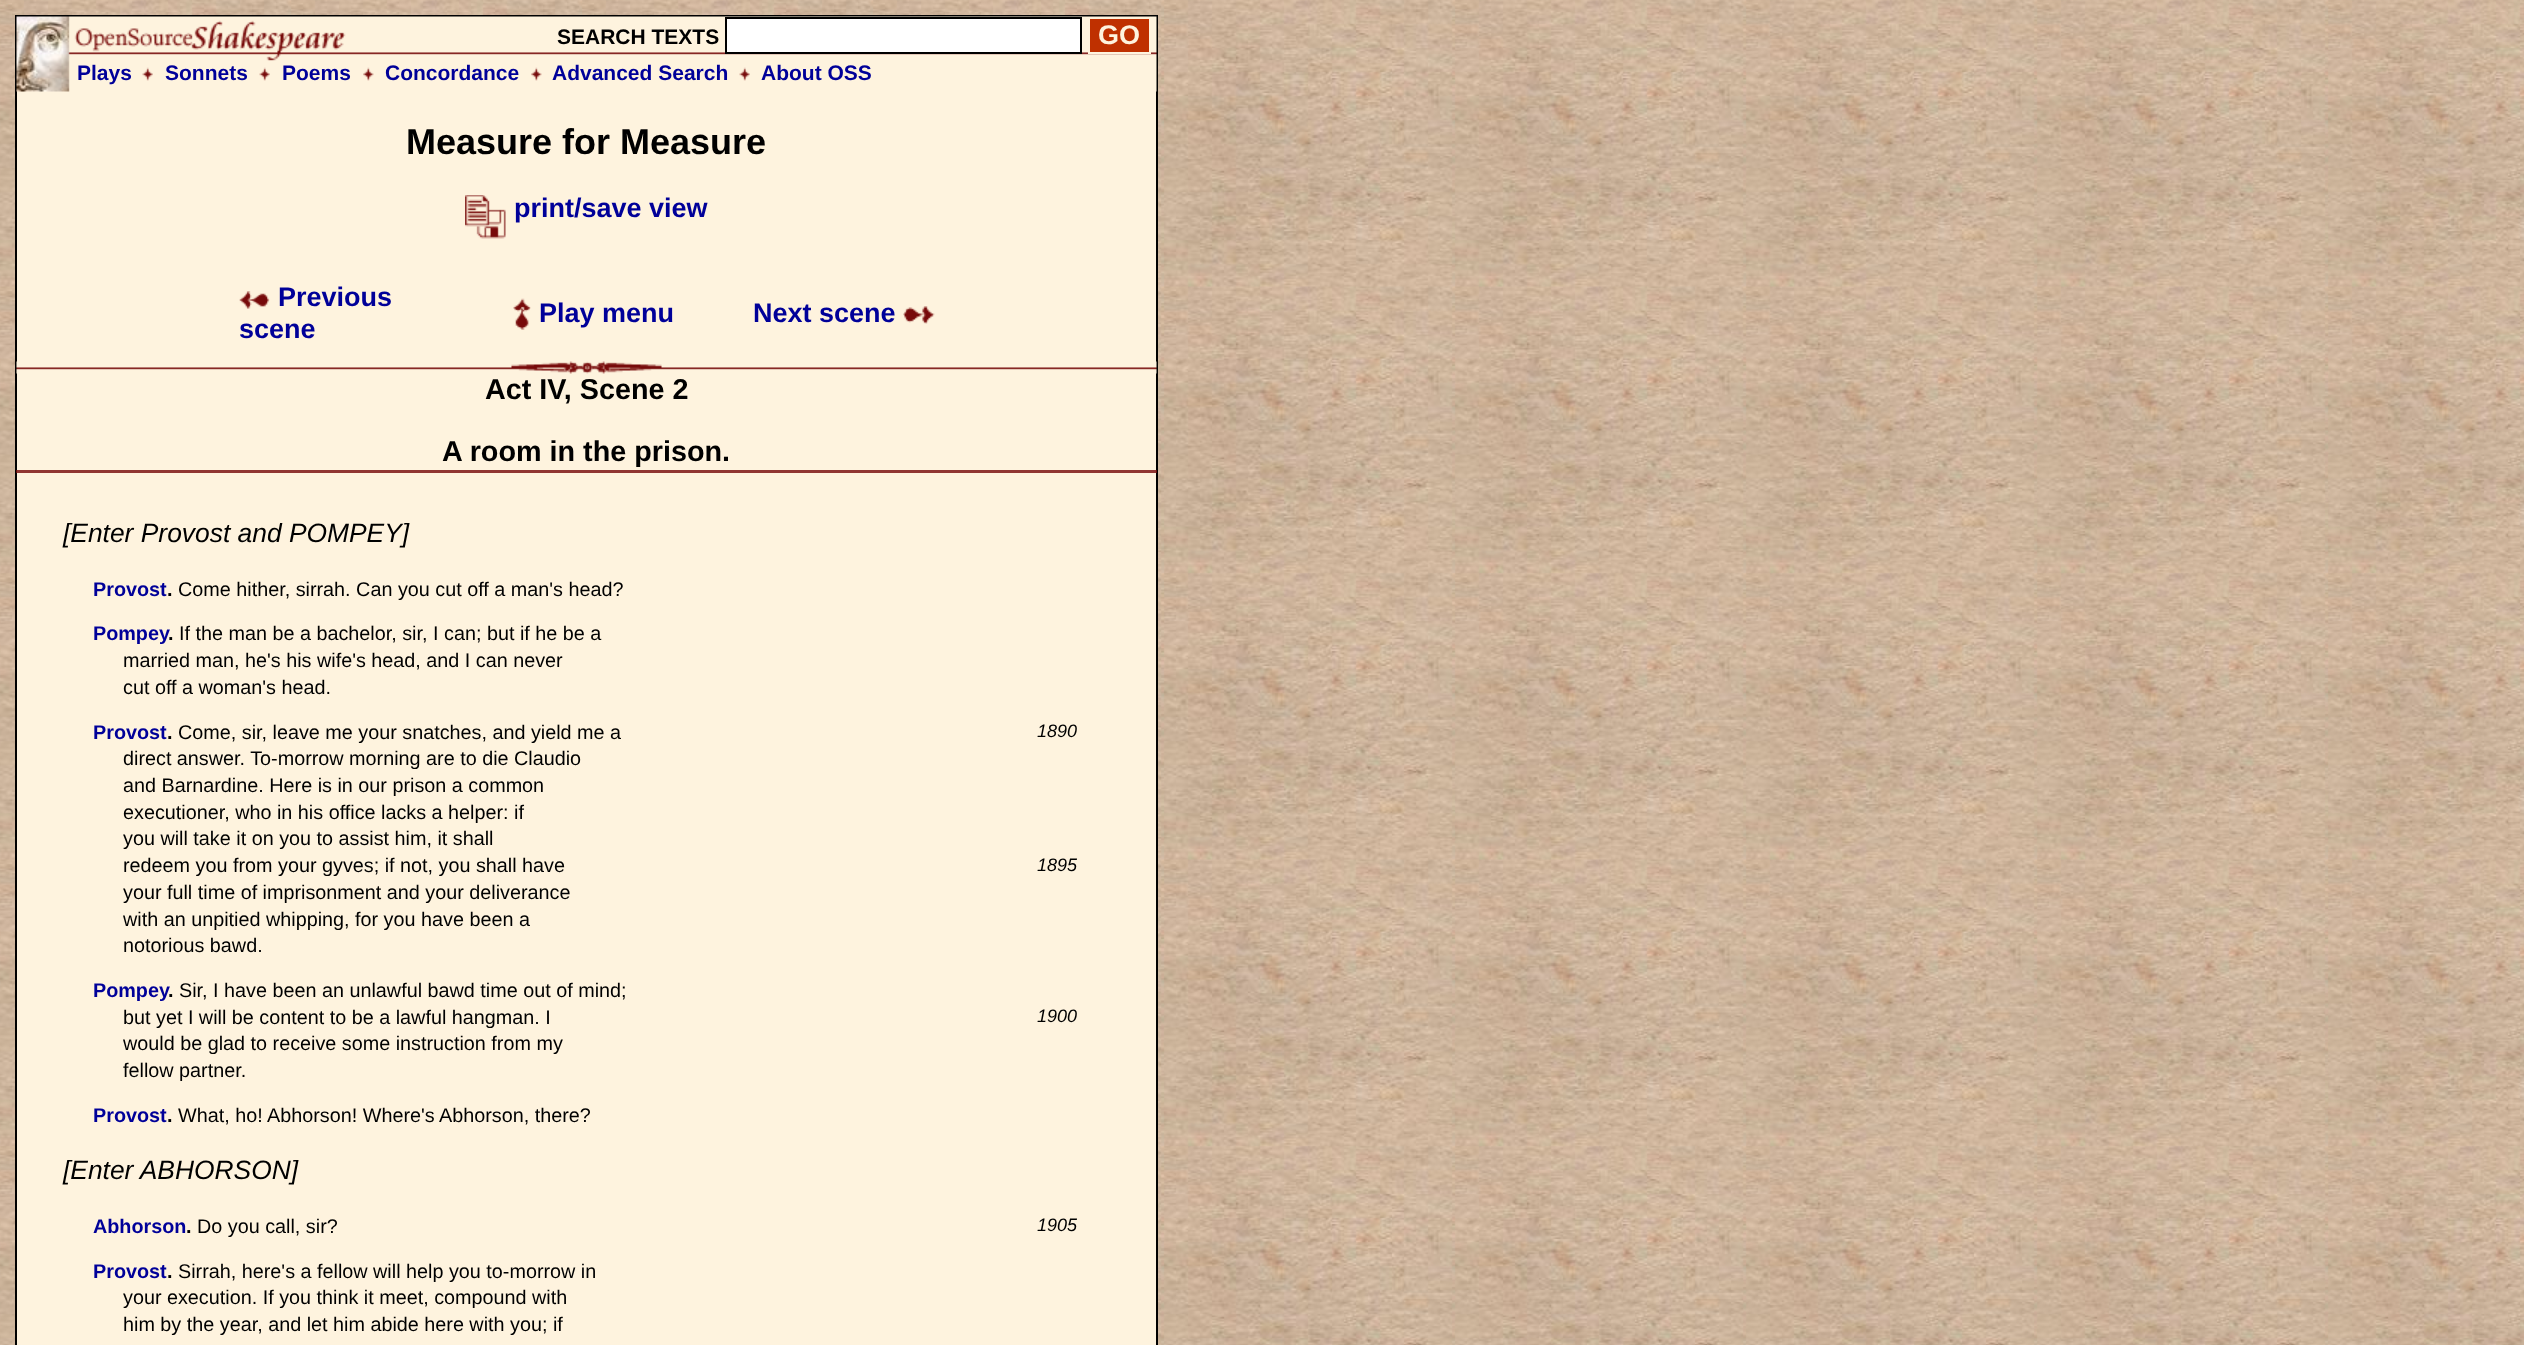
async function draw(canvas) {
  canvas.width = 2524
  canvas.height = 1345
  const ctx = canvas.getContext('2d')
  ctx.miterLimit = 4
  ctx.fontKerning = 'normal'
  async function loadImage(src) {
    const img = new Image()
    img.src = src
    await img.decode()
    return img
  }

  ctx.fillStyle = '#fff'
  ctx.fillRect(0, 0, 2524, 1345)
  ctx.drawImage(await loadImage('image0.png'), 0, 0, 2524, 1345)
  ctx.fillStyle = '#fef3de'
  ctx.fillRect(17, 91, 1139, 1254)
  ctx.strokeStyle = '#000'
  ctx.lineWidth = 2
  ctx.strokeRect(16, 16, 1141, 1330)
  ctx.drawImage(await loadImage('image1.png'), 16, 16, 1141, 76)
  ctx.font = 'bold 21px Liberation Sans'
  ctx.fillStyle = '#000'
  ctx.fillText('SEARCH TEXTS', 557, 44)
  ctx.fillStyle = '#fff'
  ctx.beginPath()
  ctx.rect(726, 18, 355, 35)
  ctx.fill()
  ctx.stroke()
  ctx.fillStyle = '#bf3000'
  ctx.beginPath()
  ctx.rect(1089, 18, 61, 35)
  ctx.fill()
  ctx.strokeStyle = '#fef3de'
  ctx.stroke()
  ctx.font = 'bold 27px Liberation Sans'
  ctx.fillStyle = '#fef3de'
  ctx.fillText('GO', 1098, 44)
  ctx.font = 'bold 21px Liberation Sans'
  ctx.fillStyle = '#009'
  ctx.fillText('Plays', 77, 80)
  ctx.drawImage(await loadImage('image2.png'), 142, 67, 11, 14)
  ctx.fillText('Sonnets', 165, 80)
  ctx.drawImage(await loadImage('image2.png'), 259, 67, 11, 14)
  ctx.fillText('Poems', 282, 80)
  ctx.drawImage(await loadImage('image3.png'), 363, 67, 11, 14)
  ctx.fillText('Concordance', 385, 80)
  ctx.drawImage(await loadImage('image3.png'), 531, 67, 11, 14)
  ctx.fillText('Advanced Search', 552, 80)
  ctx.drawImage(await loadImage('image4.png'), 739, 67, 11, 14)
  ctx.fillText('About OSS', 761, 80)
  ctx.font = 'bold 36px Liberation Sans'
  ctx.fillStyle = '#000'
  ctx.fillText('Measure for Measure', 406, 154)
  ctx.drawImage(await loadImage('image5.png'), 465, 195, 41, 44)
  ctx.font = 'bold 27px Liberation Sans'
  ctx.fillStyle = '#009'
  ctx.fillText('print/save view', 514, 217)
  ctx.drawImage(await loadImage('image6.png'), 239, 291, 31, 18)
  ctx.fillText('Previous', 278, 306)
  ctx.fillText('scene', 239, 338)
  ctx.drawImage(await loadImage('image7.png'), 513, 298, 18, 32)
  ctx.fillText('Play menu', 539, 322)
  ctx.fillText('Next scene', 753, 322)
  ctx.drawImage(await loadImage('image8.png'), 903, 306, 32, 18)
  ctx.drawImage(await loadImage('image9.png'), 16, 361, 1141, 13)
  ctx.font = 'bold 28.75px Liberation Sans'
  ctx.fillStyle = '#000'
  ctx.fillText('Act IV, Scene 2', 485, 399)
  ctx.fillText('A room in the prison.', 442, 461)
  ctx.fillStyle = '#760a0acf'
  ctx.fillRect(16, 470, 1141, 3)
  ctx.font = 'italic 26.4px Liberation Sans'
  ctx.fillStyle = '#000'
  ctx.fillText('[Enter Provost and POMPEY]', 63, 542)
  ctx.font = 'bold 19.8px Liberation Sans'
  ctx.fillStyle = '#009'
  ctx.fillText('Provost', 93, 596)
  ctx.fillStyle = '#000'
  ctx.fillText('.', 167, 596)
  ctx.font = '19.8px Liberation Sans'
  ctx.fillText('Come hither, sirrah. Can you cut off a man\'s head?', 178, 596)
  ctx.font = 'bold 19.8px Liberation Sans'
  ctx.fillStyle = '#009'
  ctx.fillText('Pompey', 93, 640)
  ctx.fillStyle = '#000'
  ctx.fillText('.', 168, 640)
  ctx.font = '19.8px Liberation Sans'
  ctx.fillText('If the man be a bachelor, sir, I can; but if he be a', 179, 640)
  ctx.fillText('married man, he\'s his wife\'s head, and I can never', 123, 667)
  ctx.fillText('cut off a woman\'s head.', 123, 694)
  ctx.font = 'bold 19.8px Liberation Sans'
  ctx.fillStyle = '#009'
  ctx.fillText('Provost', 93, 739)
  ctx.fillStyle = '#000'
  ctx.fillText('.', 167, 739)
  ctx.font = '19.8px Liberation Sans'
  ctx.fillText('Come, sir, leave me your snatches, and yield me a', 178, 739)
  ctx.font = 'italic 18px Liberation Sans'
  ctx.fillText('1890', 1037, 737)
  ctx.font = '19.8px Liberation Sans'
  ctx.fillText('direct answer. To-morrow morning are to die Claudio', 123, 765)
  ctx.fillText('and Barnardine. Here is in our prison a common', 123, 792)
  ctx.fillText('executioner, who in his office lacks a helper: if', 123, 819)
  ctx.fillText('you will take it on you to assist him, it shall', 123, 845)
  ctx.fillText('redeem you from your gyves; if not, you shall have', 123, 872)
  ctx.font = 'italic 18px Liberation Sans'
  ctx.fillText('1895', 1037, 871)
  ctx.font = '19.8px Liberation Sans'
  ctx.fillText('your full time of imprisonment and your deliverance', 123, 899)
  ctx.fillText('with an unpitied whipping, for you have been a', 123, 926)
  ctx.fillText('notorious bawd.', 123, 952)
  ctx.font = 'bold 19.8px Liberation Sans'
  ctx.fillStyle = '#009'
  ctx.fillText('Pompey', 93, 997)
  ctx.fillStyle = '#000'
  ctx.fillText('.', 168, 997)
  ctx.font = '19.8px Liberation Sans'
  ctx.fillText('Sir, I have been an unlawful bawd time out of mind;', 179, 997)
  ctx.fillText('but yet I will be content to be a lawful hangman. I', 123, 1024)
  ctx.font = 'italic 18px Liberation Sans'
  ctx.fillText('1900', 1037, 1022)
  ctx.font = '19.8px Liberation Sans'
  ctx.fillText('would be glad to receive some instruction from my', 123, 1050)
  ctx.fillText('fellow partner.', 123, 1077)
  ctx.font = 'bold 19.8px Liberation Sans'
  ctx.fillStyle = '#009'
  ctx.fillText('Provost', 93, 1122)
  ctx.fillStyle = '#000'
  ctx.fillText('.', 167, 1122)
  ctx.font = '19.8px Liberation Sans'
  ctx.fillText('What, ho! Abhorson! Where\'s Abhorson, there?', 178, 1122)
  ctx.font = 'italic 26.4px Liberation Sans'
  ctx.fillText('[Enter ABHORSON]', 63, 1179)
  ctx.font = 'bold 19.8px Liberation Sans'
  ctx.fillStyle = '#009'
  ctx.fillText('Abhorson', 93, 1233)
  ctx.fillStyle = '#000'
  ctx.fillText('.', 186, 1233)
  ctx.font = '19.8px Liberation Sans'
  ctx.fillText('Do you call, sir?', 197, 1233)
  ctx.font = 'italic 18px Liberation Sans'
  ctx.fillText('1905', 1037, 1231)
  ctx.font = 'bold 19.8px Liberation Sans'
  ctx.fillStyle = '#009'
  ctx.fillText('Provost', 93, 1278)
  ctx.fillStyle = '#000'
  ctx.fillText('.', 167, 1278)
  ctx.font = '19.8px Liberation Sans'
  ctx.fillText('Sirrah, here\'s a fellow will help you to-morrow in', 178, 1278)
  ctx.fillText('your execution. If you think it meet, compound with', 123, 1304)
  ctx.fillText('him by the year, and let him abide here with you; if', 123, 1331)
}

draw(document.querySelector('canvas'))
